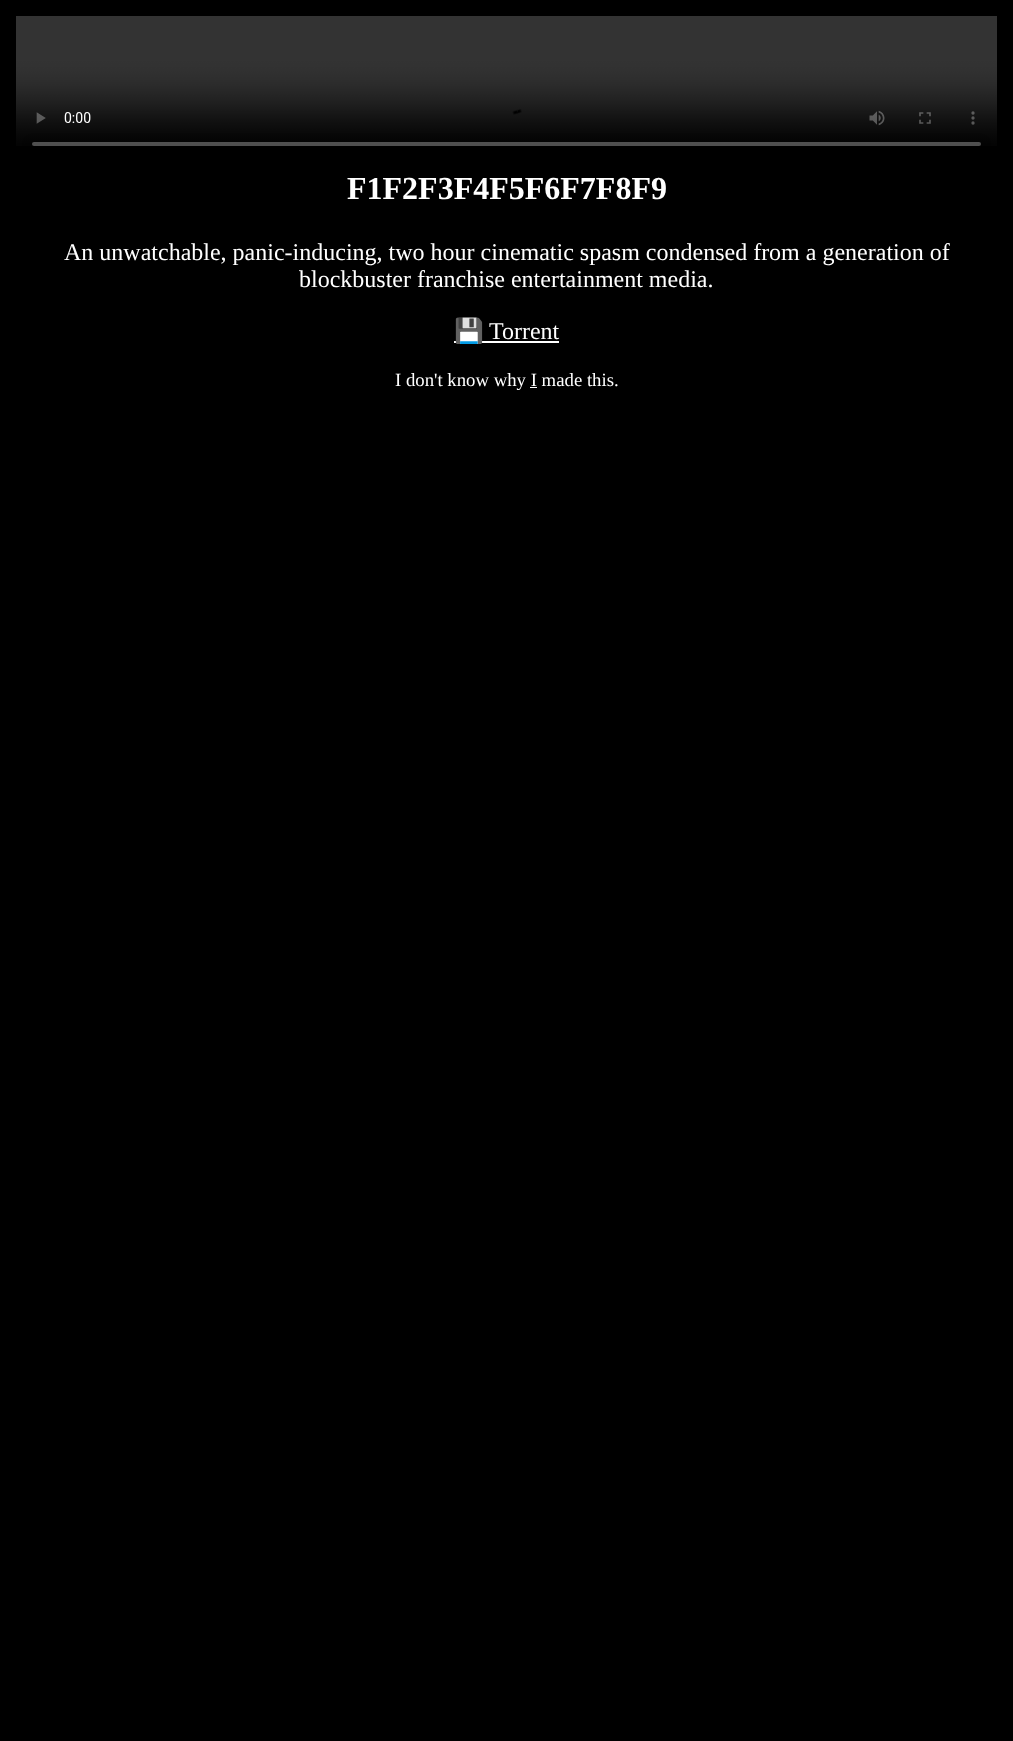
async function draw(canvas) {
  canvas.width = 1013
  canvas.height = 1741
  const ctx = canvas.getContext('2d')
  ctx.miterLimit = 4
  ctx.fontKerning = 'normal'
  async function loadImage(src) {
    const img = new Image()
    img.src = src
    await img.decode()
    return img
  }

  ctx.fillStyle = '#000'
  ctx.fillRect(0, 0, 1013, 1741)
  ctx.drawImage(await loadImage('image0.png'), 16, 16, 981, 130)
  ctx.font = 'bold 32px Liberation Serif'
  ctx.fillStyle = '#fff'
  ctx.fillText('F1F2F3F4F5F6F7F8F9', 347, 199)
  ctx.font = '24px Liberation Serif'
  ctx.fillText('An unwatchable, panic-inducing, two hour cinematic spasm condensed from a generation of', 64, 260)
  ctx.fillText('blockbuster franchise entertainment media.', 299, 287)
  ctx.fillRect(454, 341, 105, 2)
  ctx.font = '24px Noto Color Emoji'
  ctx.fillText('💾', 454, 339)
  ctx.font = '24px Liberation Serif'
  ctx.fillText('Torrent', 489, 339)
  ctx.font = '18.75px Liberation Serif'
  ctx.fillText('I don\'t know why I made this.', 395, 386)
  ctx.fillRect(530, 387, 7, 1)
}

draw(document.querySelector('canvas'))
